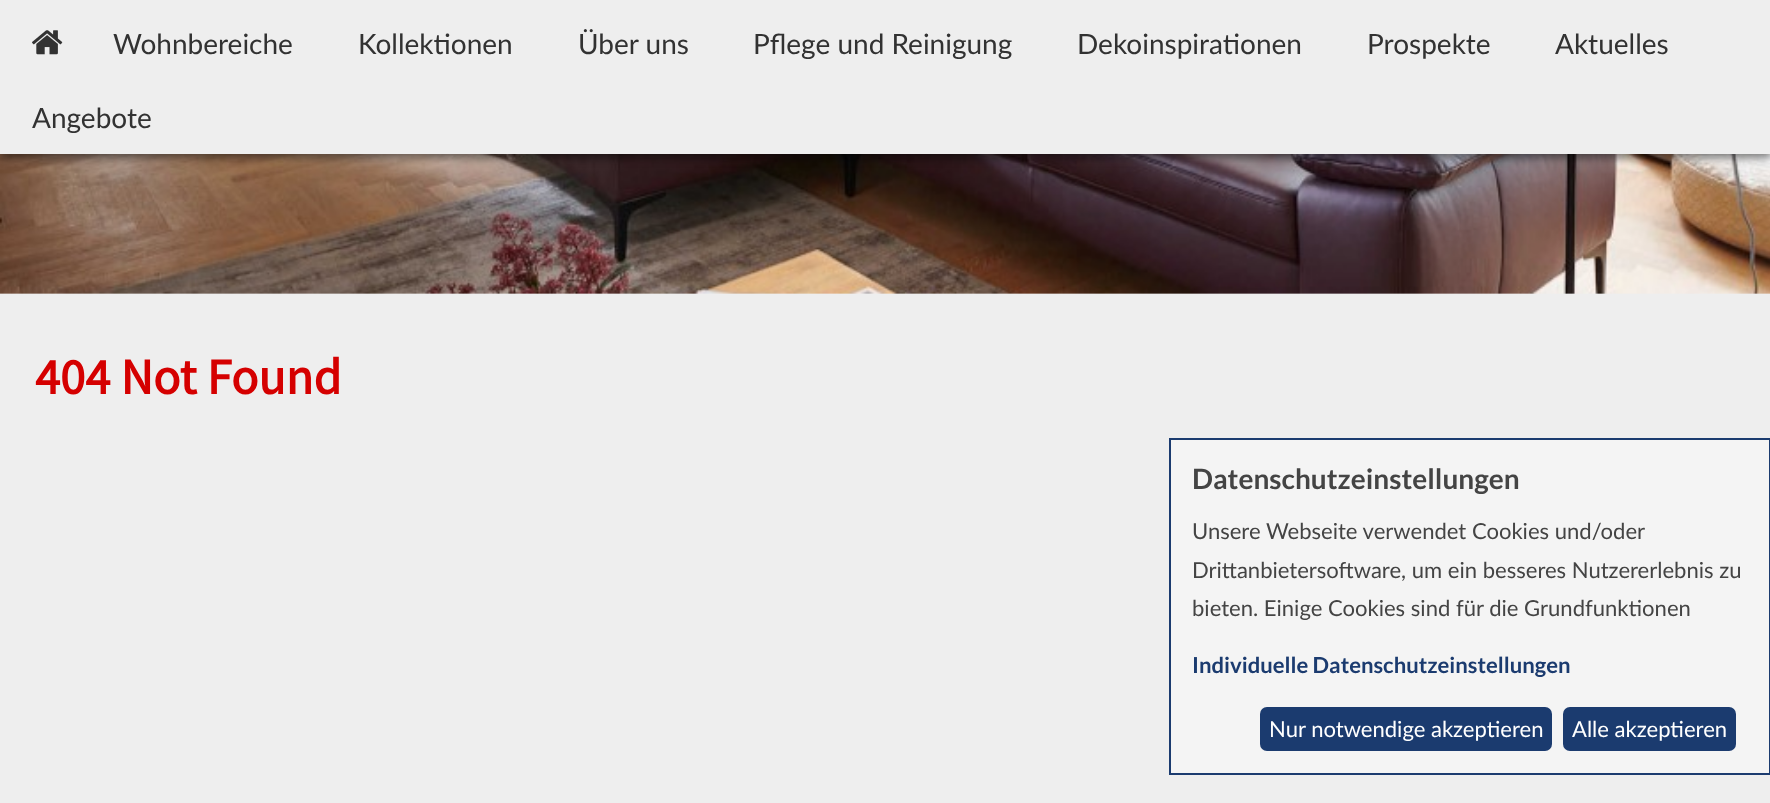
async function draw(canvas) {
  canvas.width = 1770
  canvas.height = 803
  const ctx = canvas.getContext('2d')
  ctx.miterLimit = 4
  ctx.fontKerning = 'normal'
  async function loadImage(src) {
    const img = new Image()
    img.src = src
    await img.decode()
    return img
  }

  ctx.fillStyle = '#eee'
  ctx.fillRect(0, 0, 1770, 803)
  ctx.drawImage(await loadImage('image1.png'), 0, 154, 1770, 140)
  ctx.fillStyle = '#01010180'
  ctx.filter = 'blur(4.5px)'
  ctx.beginPath()
  ctx.rect(0, -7, 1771, 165)
  ctx.fill()
  ctx.filter = 'none'
  ctx.fillStyle = '#eee'
  ctx.fillRect(0, 0, 1770, 154)
  ctx.drawImage(await loadImage('image0.png'), 32, 30, 31, 25)
  ctx.font = '28px Lato'
  ctx.fillStyle = '#323232'
  ctx.fillText('Wohnbereiche', 113, 54)
  ctx.fillText('Kollektionen', 358, 54)
  ctx.fillText('Über uns', 578, 54)
  ctx.fillText('Pflege und Reinigung', 753, 54)
  ctx.fillText('Dekoinspirationen', 1077, 54)
  ctx.fillText('Prospekte', 1367, 54)
  ctx.fillText('Aktuelles', 1555, 54)
  ctx.fillText('Angebote', 32, 128)
  ctx.font = 'bold 50.5px Source Sans Pro'
  ctx.fillStyle = '#d50000'
  ctx.fillText('404 Not Found', 35, 394)
  ctx.fillStyle = '#f4f4f4'
  ctx.beginPath()
  ctx.rect(1170, 439, 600, 335)
  ctx.fill()
  ctx.strokeStyle = '#1b3b6f'
  ctx.lineWidth = 2
  ctx.stroke()
  ctx.font = 'bold 28px Lato'
  ctx.fillStyle = '#444'
  ctx.fillText('Datenschutzeinstellungen', 1192, 489)
  ctx.font = '22.05px Lato'
  ctx.fillText('Unsere Webseite verwendet Cookies und/oder', 1192, 539)
  ctx.fillText('Drittanbietersoftware, um ein besseres Nutzererlebnis zu', 1192, 578)
  ctx.fillText('bieten. Einige Cookies sind für die Grundfunktionen', 1192, 616)
  ctx.font = 'bold 22.05px Lato'
  ctx.fillStyle = '#1b3b6f'
  ctx.fillText('Individuelle Datenschutzeinstellungen', 1192, 673)
  ctx.beginPath()
  ctx.roundRect(1260, 707, 292, 44, 7)
  ctx.fill()
  ctx.font = '22.05px Lato'
  ctx.fillStyle = '#fff'
  ctx.fillText('Nur notwendige akzeptieren', 1269, 737)
  ctx.fillStyle = '#1b3b6f'
  ctx.beginPath()
  ctx.roundRect(1563, 707, 173, 44, 7)
  ctx.fill()
  ctx.fillStyle = '#fff'
  ctx.fillText('Alle akzeptieren', 1572, 737)
}

draw(document.querySelector('canvas'))
